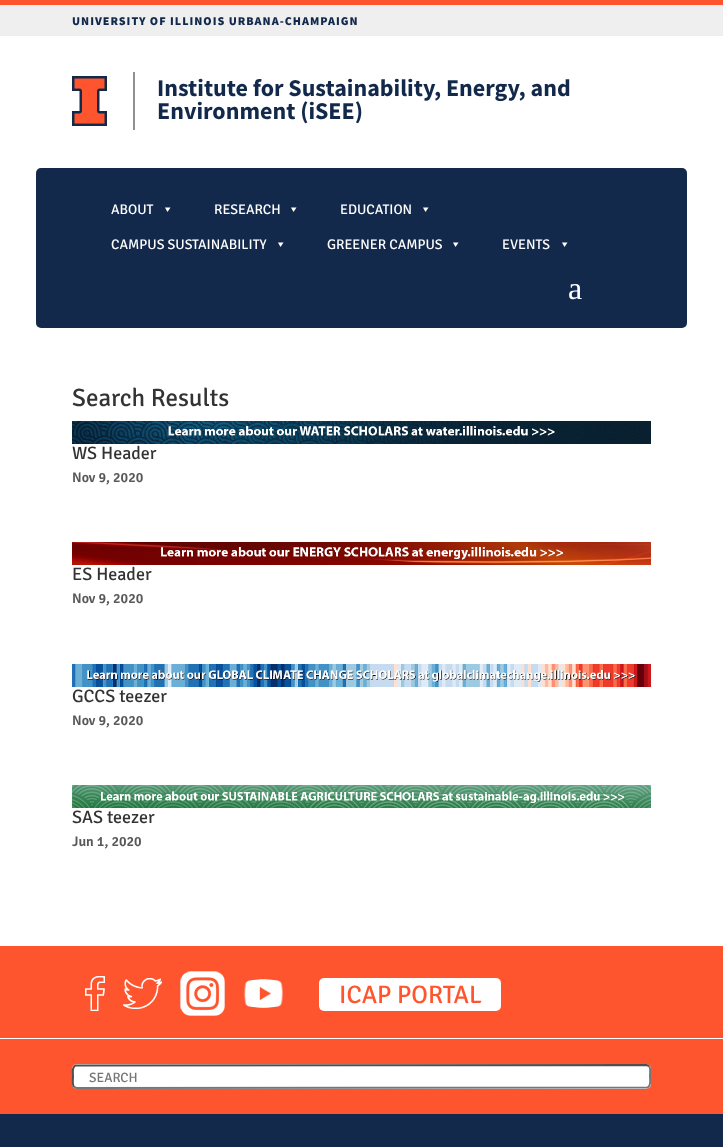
async function draw(canvas) {
  canvas.width = 723
  canvas.height = 1147
  const ctx = canvas.getContext('2d')
  ctx.miterLimit = 4
  ctx.fontKerning = 'normal'
  async function loadImage(src) {
    const img = new Image()
    img.src = src
    await img.decode()
    return img
  }

  ctx.fillStyle = '#fff'
  ctx.fillRect(0, 0, 723, 1147)
  ctx.fillStyle = '#efefef'
  ctx.fillRect(0, 5, 723, 31)
  ctx.fillStyle = '#ff552e'
  ctx.fillRect(0, 0, 723, 5)
  ctx.letterSpacing = '1px'
  ctx.font = '900 12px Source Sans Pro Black'
  ctx.fillStyle = '#13294b'
  ctx.fillText('UNIVERSITY OF ILLINOIS URBANA-CHAMPAIGN', 72, 25)
  ctx.drawImage(await loadImage('image0.png'), 72, 76, 35, 50)
  ctx.fillStyle = '#919191'
  ctx.fillRect(133, 72, 2, 58)
  ctx.letterSpacing = '0px'
  ctx.font = 'bold 24px Source Sans Pro'
  ctx.fillStyle = '#13294b'
  ctx.fillText('Institute for Sustainability, Energy, and', 157, 96)
  ctx.fillText('Environment (iSEE)', 157, 119)
  ctx.beginPath()
  ctx.roundRect(36, 168, 651, 160, 5)
  ctx.fill()
  ctx.font = '14px Signika'
  ctx.fillStyle = '#fff'
  ctx.fillText('ABOUT', 111, 214)
  ctx.beginPath()
  ctx.moveTo(170.5, 207.5)
  ctx.lineTo(167.5, 212)
  ctx.lineTo(165, 207.5)
  ctx.closePath()
  ctx.fill()
  ctx.fillText('RESEARCH', 214, 214)
  ctx.beginPath()
  ctx.moveTo(296.5, 207.5)
  ctx.lineTo(293.5, 212)
  ctx.lineTo(291, 207.5)
  ctx.closePath()
  ctx.fill()
  ctx.fillText('EDUCATION', 340, 214)
  ctx.beginPath()
  ctx.moveTo(428.5, 207.5)
  ctx.lineTo(425.5, 212)
  ctx.lineTo(423, 207.5)
  ctx.closePath()
  ctx.fill()
  ctx.fillText('CAMPUS SUSTAINABILITY', 111, 249)
  ctx.beginPath()
  ctx.moveTo(283.5, 242.5)
  ctx.lineTo(280.5, 247)
  ctx.lineTo(278, 242.5)
  ctx.closePath()
  ctx.fill()
  ctx.fillText('GREENER CAMPUS', 327, 249)
  ctx.beginPath()
  ctx.moveTo(458.5, 242.5)
  ctx.lineTo(455.5, 247)
  ctx.lineTo(453, 242.5)
  ctx.closePath()
  ctx.fill()
  ctx.fillText('EVENTS', 502, 249)
  ctx.beginPath()
  ctx.moveTo(567.5, 242.5)
  ctx.lineTo(564.5, 247)
  ctx.lineTo(562, 242.5)
  ctx.closePath()
  ctx.fill()
  ctx.font = '32px Liberation Serif'
  ctx.fillText('a', 568, 299)
  ctx.font = '25px Signika'
  ctx.fillStyle = '#333'
  ctx.fillText('Search Results', 72, 406)
  ctx.drawImage(await loadImage('image1.png'), 72, 421, 579, 23)
  ctx.font = '18px Signika'
  ctx.fillText('WS Header', 72, 459)
  ctx.font = '600 14px Signika'
  ctx.fillStyle = '#585858'
  ctx.fillText('Nov 9, 2020', 72, 482)
  ctx.drawImage(await loadImage('image2.png'), 72, 542, 579, 23)
  ctx.font = '18px Signika'
  ctx.fillStyle = '#333'
  ctx.fillText('ES Header', 72, 580)
  ctx.font = '600 14px Signika'
  ctx.fillStyle = '#585858'
  ctx.fillText('Nov 9, 2020', 72, 603)
  ctx.drawImage(await loadImage('image3.png'), 72, 664, 579, 23)
  ctx.font = '18px Signika'
  ctx.fillStyle = '#333'
  ctx.fillText('GCCS teezer', 72, 702)
  ctx.font = '600 14px Signika'
  ctx.fillStyle = '#585858'
  ctx.fillText('Nov 9, 2020', 72, 725)
  ctx.drawImage(await loadImage('image4.png'), 72, 785, 579, 23)
  ctx.font = '18px Signika'
  ctx.fillStyle = '#333'
  ctx.fillText('SAS teezer', 72, 823)
  ctx.font = '600 14px Signika'
  ctx.fillStyle = '#585858'
  ctx.fillText('Jun 1, 2020', 72, 846)
  ctx.fillStyle = '#ff552e'
  ctx.fillRect(0, 946, 723, 168)
  ctx.drawImage(await loadImage('image5.png'), 85, 976, 20, 35)
  ctx.drawImage(await loadImage('image6.png'), 123, 978, 39, 31)
  ctx.drawImage(await loadImage('image7.png'), 180, 971, 45, 45)
  ctx.drawImage(await loadImage('image8.png'), 244, 979, 39, 29)
  ctx.fillStyle = '#fff'
  ctx.beginPath()
  ctx.roundRect(319, 978, 182, 33, 5)
  ctx.fill()
  ctx.font = '25.25px Signika'
  ctx.fillStyle = '#ff552e'
  ctx.fillText('ICAP PORTAL', 339, 1003)
  ctx.fillStyle = '#fff'
  ctx.fillRect(0, 1038, 723, 1)
  ctx.beginPath()
  ctx.roundRect(72, 1064, 579, 25, 5)
  ctx.fill()
  ctx.beginPath()
  ctx.moveTo(649, 1066)
  ctx.bezierCurveTo(651, 1068.5, 650, 1073.5, 650, 1076.5)
  ctx.bezierCurveTo(650, 1079.5, 651.5, 1086, 647.5, 1087.5)
  ctx.lineTo(76.5, 1088)
  ctx.lineTo(74, 1087)
  ctx.strokeStyle = '#767676'
  ctx.lineWidth = 2
  ctx.stroke()
  ctx.beginPath()
  ctx.moveTo(74, 1087)
  ctx.bezierCurveTo(72, 1084.5, 73, 1079.5, 73, 1076.5)
  ctx.bezierCurveTo(73, 1073.5, 71.5, 1067, 75.5, 1065.5)
  ctx.lineTo(646.5, 1065)
  ctx.lineTo(649, 1066)
  ctx.strokeStyle = '#4f4f4f'
  ctx.stroke()
  ctx.font = '13.5px Signika'
  ctx.fillStyle = '#757575'
  ctx.fillText('SEARCH', 89, 1082)
  ctx.fillStyle = '#13294b'
  ctx.fillRect(0, 1114, 723, 33)
}

draw(document.querySelector('canvas'))
